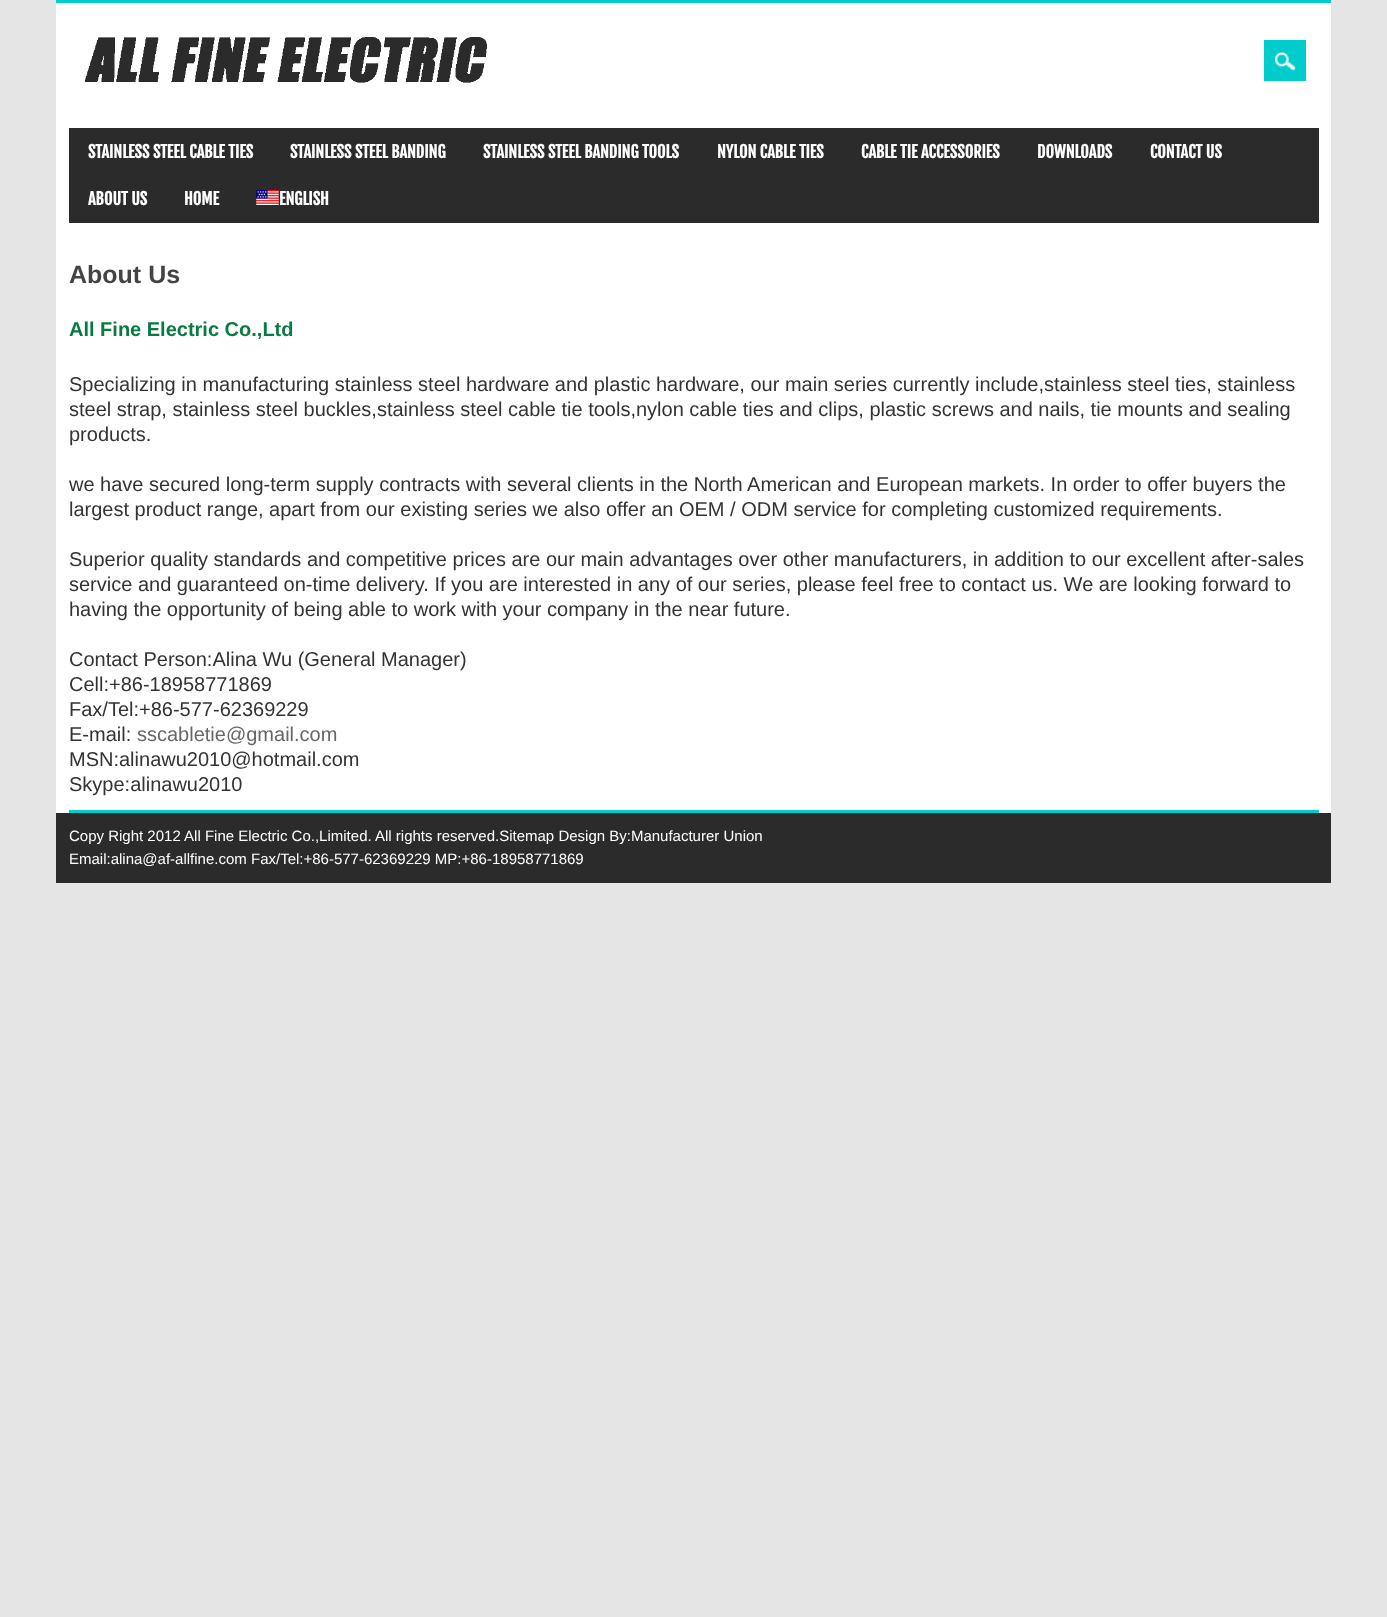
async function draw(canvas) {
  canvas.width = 1387
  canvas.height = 1617
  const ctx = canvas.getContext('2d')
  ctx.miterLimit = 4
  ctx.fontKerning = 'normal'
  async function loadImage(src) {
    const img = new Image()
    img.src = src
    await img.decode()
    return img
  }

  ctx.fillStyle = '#e5e5e5'
  ctx.fillRect(0, 0, 1387, 1617)
  ctx.fillStyle = '#fff'
  ctx.fillRect(56, 3, 1275, 810)
  ctx.fillStyle = '#0cc'
  ctx.fillRect(56, 0, 1275, 3)
  ctx.drawImage(await loadImage('image0.png'), 85, 37, 402, 46)
  ctx.fillRect(1264, 40, 42, 41)
  ctx.drawImage(await loadImage('image1.png'), 1274, 52, 22, 19)
  ctx.fillStyle = '#2b2b2b'
  ctx.fillRect(69, 128, 1250, 95)
  ctx.font = 'bold 16.25px Fjalla One'
  ctx.fillStyle = '#fff'
  ctx.fillText('STAINLESS STEEL CABLE TIES', 88, 158)
  ctx.fillText('STAINLESS STEEL BANDING', 290, 158)
  ctx.fillText('STAINLESS STEEL BANDING TOOLS', 483, 158)
  ctx.fillText('NYLON CABLE TIES', 717, 158)
  ctx.fillText('CABLE TIE ACCESSORIES', 861, 158)
  ctx.fillText('DOWNLOADS', 1037, 158)
  ctx.fillText('CONTACT US', 1150, 158)
  ctx.fillText('ABOUT US', 88, 205)
  ctx.fillText('HOME', 184, 205)
  ctx.drawImage(await loadImage('image2.png'), 256, 190, 23, 15)
  ctx.fillText('ENGLISH', 279, 205)
  ctx.fillStyle = '#0cc'
  ctx.fillRect(69, 810, 1250, 3)
  ctx.font = 'bold 25px Liberation Sans'
  ctx.fillStyle = '#444'
  ctx.fillText('About Us', 69, 283)
  ctx.font = 'bold 20px Liberation Sans'
  ctx.fillStyle = '#097b42'
  ctx.fillText('All Fine Electric Co.,Ltd', 69, 336)
  ctx.font = '20px Liberation Sans'
  ctx.fillStyle = '#333'
  ctx.fillText('Specializing in manufacturing stainless steel hardware and plastic hardware, our main series currently include,stainless steel ties, stainless', 69, 391)
  ctx.fillText('steel strap, stainless steel buckles,stainless steel cable tie tools,nylon cable ties and clips, plastic screws and nails, tie mounts and sealing', 69, 416)
  ctx.fillText('products.', 69, 441)
  ctx.fillText('we have secured long-term supply contracts with several clients in the North American and European markets. In order to offer buyers the', 69, 491)
  ctx.fillText('largest product range, apart from our existing series we also offer an OEM / ODM service for completing customized requirements.', 69, 516)
  ctx.fillText('Superior quality standards and competitive prices are our main advantages over other manufacturers, in addition to our excellent after-sales', 69, 566)
  ctx.fillText('service and guaranteed on-time delivery. If you are interested in any of our series, please feel free to contact us. We are looking forward to', 69, 591)
  ctx.fillText('having the opportunity of being able to work with your company in the near future.', 69, 616)
  ctx.fillText('Contact Person:Alina Wu (General Manager)', 69, 666)
  ctx.fillText('Cell:+86-18958771869', 69, 691)
  ctx.fillText('Fax/Tel:+86-577-62369229', 69, 716)
  ctx.fillText('E-mail:', 69, 741)
  ctx.fillStyle = '#666'
  ctx.fillText('sscabletie@gmail.com', 137, 741)
  ctx.fillStyle = '#333'
  ctx.fillText('MSN:alinawu2010@hotmail.com', 69, 766)
  ctx.fillText('Skype:alinawu2010', 69, 791)
  ctx.fillStyle = '#2b2b2b'
  ctx.fillRect(56, 813, 1275, 70)
  ctx.font = '15px Liberation Sans'
  ctx.fillStyle = '#fff'
  ctx.fillText('Copy Right 2012 All Fine Electric Co.,Limited. All rights reserved.Sitemap Design By:Manufacturer Union', 69, 841)
  ctx.fillText('Email:alina@af-allfine.com Fax/Tel:+86-577-62369229 MP:+86-18958771869', 69, 864)
}

draw(document.querySelector('canvas'))
